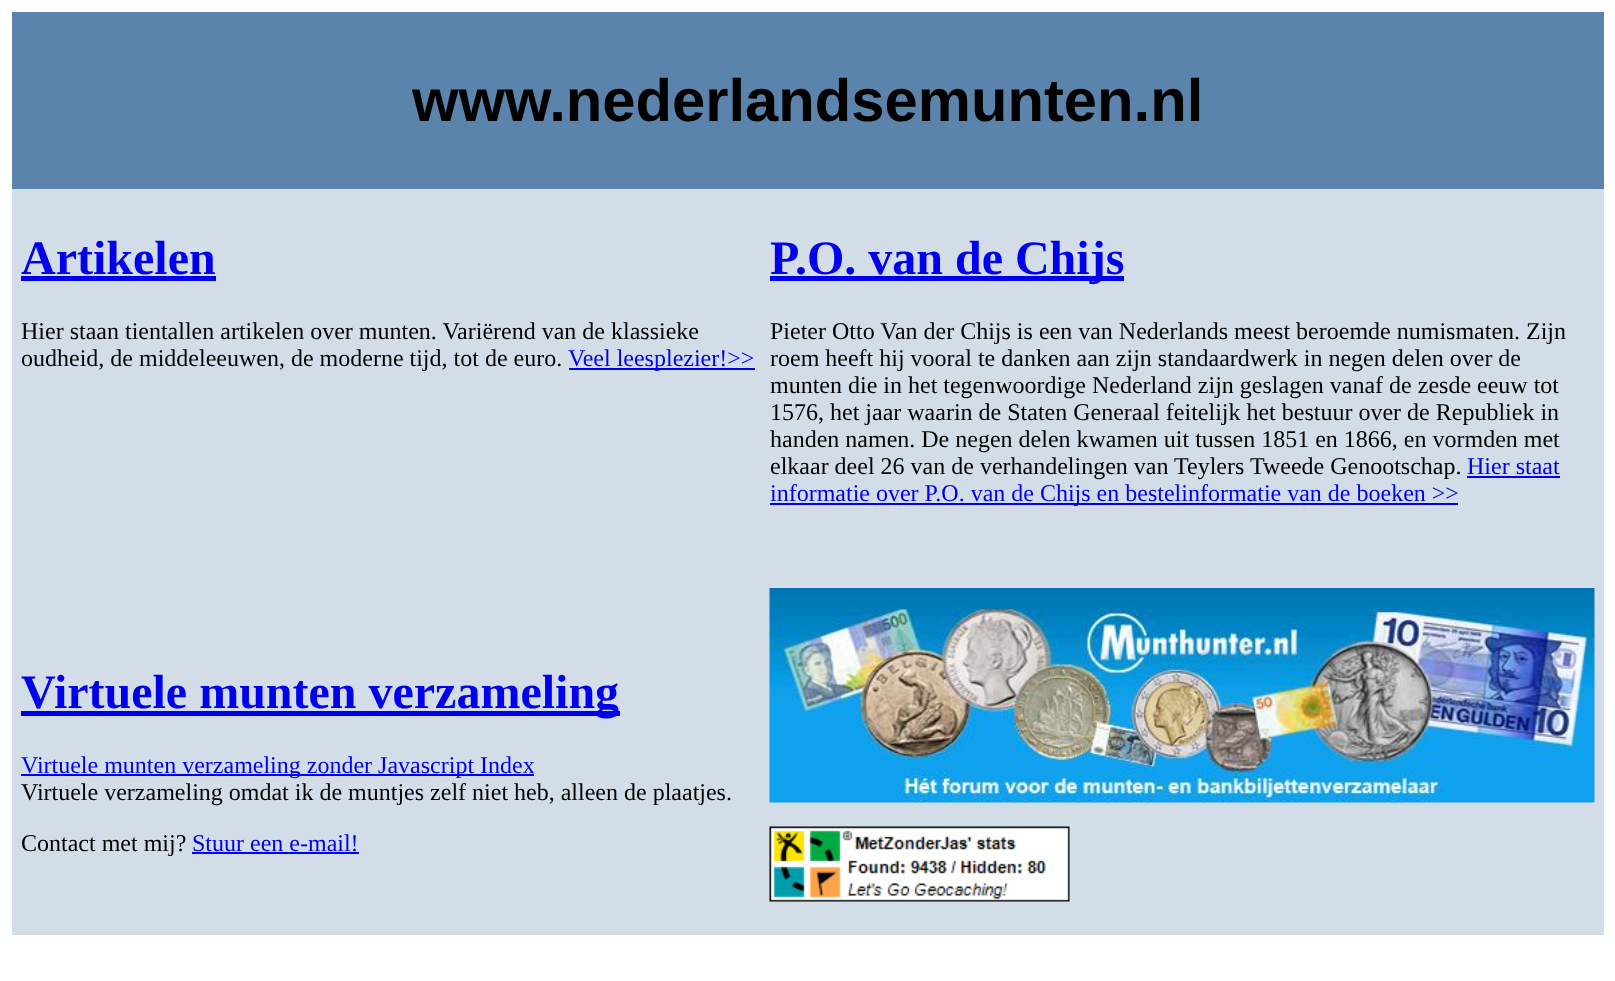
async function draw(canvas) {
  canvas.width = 1615
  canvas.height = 981
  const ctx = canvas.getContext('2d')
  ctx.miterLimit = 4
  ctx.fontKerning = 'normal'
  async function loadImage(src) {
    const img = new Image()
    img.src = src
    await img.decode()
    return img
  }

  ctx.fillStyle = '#fff'
  ctx.fillRect(0, 0, 1615, 981)
  ctx.fillStyle = '#5b84ac'
  ctx.fillRect(12, 12, 1592, 177)
  ctx.font = 'bold 59.75px Liberation Sans'
  ctx.fillStyle = '#000'
  ctx.fillText('www.nederlandsemunten.nl', 412, 121)
  ctx.fillStyle = '#d2dde8'
  ctx.fillRect(12, 189, 1592, 746)
  ctx.font = 'bold 48px Liberation Serif'
  ctx.fillStyle = '#00e'
  ctx.fillText('Artikelen', 21, 274)
  ctx.fillRect(21, 276, 195, 5)
  ctx.font = '24px Liberation Serif'
  ctx.fillStyle = '#000'
  ctx.fillText('Hier staan tientallen artikelen over munten. Variërend van de klassieke', 21, 339)
  ctx.fillText('oudheid, de middeleeuwen, de moderne tijd, tot de euro.', 21, 366)
  ctx.fillStyle = '#00e'
  ctx.fillRect(569, 368, 186, 2)
  ctx.fillText('Veel leesplezier!>>', 568, 366)
  ctx.fillRect(770, 276, 354, 5)
  ctx.font = 'bold 48px Liberation Serif'
  ctx.fillText('P.O. van de Chijs', 770, 274)
  ctx.font = '24px Liberation Serif'
  ctx.fillStyle = '#000'
  ctx.fillText('Pieter Otto Van der Chijs is een van Nederlands meest beroemde numismaten. Zijn', 770, 339)
  ctx.fillText('roem heeft hij vooral te danken aan zijn standaardwerk in negen delen over de', 770, 366)
  ctx.fillText('munten die in het tegenwoordige Nederland zijn geslagen vanaf de zesde eeuw tot', 770, 393)
  ctx.fillText('1576, het jaar waarin de Staten Generaal feitelijk het bestuur over de Republiek in', 770, 420)
  ctx.fillText('handen namen. De negen delen kwamen uit tussen 1851 en 1866, en vormden met', 770, 447)
  ctx.fillText('elkaar deel 26 van de verhandelingen van Teylers Tweede Genootschap.', 770, 474)
  ctx.fillStyle = '#00e'
  ctx.fillText('Hier staat', 1467, 474)
  ctx.fillRect(1467, 476, 93, 2)
  ctx.fillRect(770, 503, 688, 2)
  ctx.fillText('informatie over P.O. van de Chijs en bestelinformatie van de boeken >>', 770, 501)
  ctx.fillRect(21, 711, 599, 5)
  ctx.font = 'bold 48px Liberation Serif'
  ctx.fillText('Virtuele munten verzameling', 21, 708)
  ctx.fillRect(21, 774, 513, 2)
  ctx.font = '24px Liberation Serif'
  ctx.fillText('Virtuele munten verzameling zonder Javascript Index', 21, 773)
  ctx.fillStyle = '#000'
  ctx.fillText('Virtuele verzameling omdat ik de muntjes zelf niet heb, alleen de plaatjes.', 21, 800)
  ctx.fillText('Contact met mij?', 21, 851)
  ctx.fillStyle = '#00e'
  ctx.fillText('Stuur een e-mail!', 192, 851)
  ctx.fillRect(192, 852, 167, 2)
  ctx.drawImage(await loadImage('image0.png'), 769, 588, 826, 215)
  ctx.drawImage(await loadImage('image1.png'), 769, 826, 301, 76)
}

draw(document.querySelector('canvas'))
